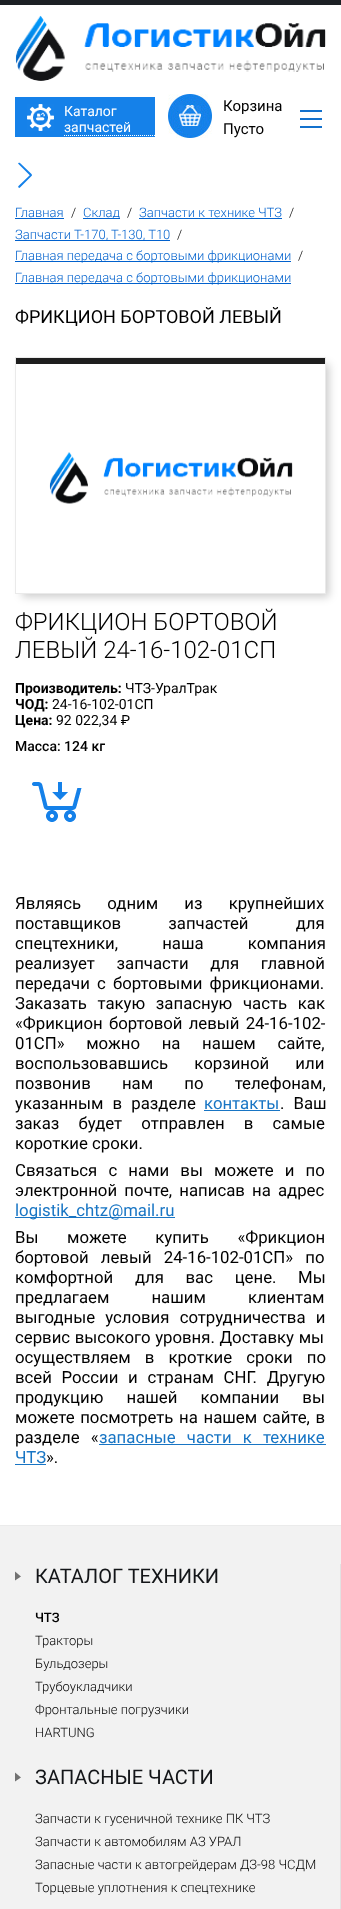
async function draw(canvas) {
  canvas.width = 341
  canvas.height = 1909
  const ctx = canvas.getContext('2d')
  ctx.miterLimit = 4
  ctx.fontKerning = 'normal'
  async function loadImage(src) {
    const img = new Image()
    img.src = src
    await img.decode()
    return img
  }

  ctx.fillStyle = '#fff'
  ctx.fillRect(0, 0, 341, 1909)
  ctx.fillStyle = '#1c2024'
  ctx.fillRect(0, 0, 341, 5)
  ctx.drawImage(await loadImage('image0.png'), 15, 15, 311, 66)
  ctx.fillStyle = '#1581e9'
  ctx.fillRect(15, 97, 140, 40)
  ctx.drawImage(await loadImage('image1.png'), 27, 104, 27, 27)
  ctx.beginPath()
  ctx.moveTo(64, 135.5)
  ctx.lineTo(155, 135.5)
  ctx.strokeStyle = '#fff'
  ctx.setLineDash([1, 1])
  ctx.stroke()
  ctx.font = '14px Roboto'
  ctx.fillStyle = '#fff'
  ctx.fillText('Каталог', 64, 116)
  ctx.fillText('запчастей', 64, 132)
  ctx.drawImage(await loadImage('image2.png'), 168, 94, 44, 44)
  ctx.font = '15px Roboto'
  ctx.fillStyle = '#000'
  ctx.fillText('Корзина', 223, 111)
  ctx.fillText('Пусто', 223, 134)
  ctx.fillStyle = '#1371cd'
  ctx.fillRect(300, 118, 22, 2)
  ctx.fillRect(300, 110, 22, 2)
  ctx.fillRect(300, 126, 22, 2)
  ctx.fillStyle = '#1581e9'
  ctx.beginPath()
  ctx.moveTo(18.5, 163)
  ctx.bezierCurveTo(19, 162.5, 19.5, 162.5, 20, 163)
  ctx.lineTo(31.5, 174)
  ctx.bezierCurveTo(32, 174.5, 32, 175, 31.5, 175.5)
  ctx.bezierCurveTo(31, 176, 30.5, 176, 30, 175.5)
  ctx.lineTo(18.5, 164)
  ctx.bezierCurveTo(18, 164, 18, 163, 18.5, 163)
  ctx.closePath()
  ctx.fill()
  ctx.beginPath()
  ctx.moveTo(31.5, 175)
  ctx.bezierCurveTo(32, 175, 32, 176, 31.5, 176)
  ctx.lineTo(20, 187.5)
  ctx.bezierCurveTo(19.5, 188, 19, 188, 18.5, 187.5)
  ctx.bezierCurveTo(18, 187, 18, 186.5, 18.5, 186)
  ctx.lineTo(30, 175)
  ctx.bezierCurveTo(30.5, 174.5, 31, 174.5, 31.5, 175)
  ctx.closePath()
  ctx.fill()
  ctx.font = '300 13px Roboto'
  ctx.fillStyle = '#0161cd'
  ctx.fillText('Главная', 15, 217)
  ctx.fillRect(15, 218, 49, 1)
  ctx.fillStyle = '#000'
  ctx.fillText('/', 71, 217)
  ctx.fillStyle = '#0161cd'
  ctx.fillRect(83, 218, 37, 1)
  ctx.fillText('Склад', 83, 217)
  ctx.fillStyle = '#000'
  ctx.fillText('/', 127, 217)
  ctx.fillStyle = '#0161cd'
  ctx.fillText('Запчасти к технике ЧТЗ', 139, 217)
  ctx.fillRect(139, 218, 143, 1)
  ctx.fillStyle = '#000'
  ctx.fillText('/', 289, 217)
  ctx.fillStyle = '#0161cd'
  ctx.fillRect(15, 240, 155, 1)
  ctx.fillText('Запчасти Т-170, Т-130, Т10', 15, 239)
  ctx.fillStyle = '#000'
  ctx.fillText('/', 177, 239)
  ctx.fillStyle = '#0161cd'
  ctx.fillRect(15, 261, 276, 1)
  ctx.fillText('Главная передача с бортовыми фрикционами', 15, 260)
  ctx.fillStyle = '#000'
  ctx.fillText('/', 298, 260)
  ctx.fillStyle = '#0161cd'
  ctx.fillRect(15, 283, 276, 1)
  ctx.fillText('Главная передача с бортовыми фрикционами', 15, 282)
  ctx.font = '18px Roboto'
  ctx.fillStyle = '#000'
  ctx.fillText('ФРИКЦИОН БОРТОВОЙ ЛЕВЫЙ', 15, 323)
  ctx.save()
  ctx.beginPath()
  ctx.moveTo(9, 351)
  ctx.lineTo(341, 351)
  ctx.lineTo(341, 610)
  ctx.lineTo(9, 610)
  ctx.closePath()
  ctx.moveTo(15, 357)
  ctx.lineTo(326, 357)
  ctx.lineTo(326, 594)
  ctx.lineTo(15, 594)
  ctx.closePath()
  ctx.clip('evenodd')
  ctx.fillStyle = '#00000033'
  ctx.filter = 'blur(4px)'
  ctx.beginPath()
  ctx.rect(22, 364, 307, 233)
  ctx.fill()
  ctx.filter = 'none'
  ctx.restore()
  ctx.strokeStyle = '#eaeaea'
  ctx.setLineDash([])
  ctx.strokeRect(15.5, 357.5, 310, 236)
  ctx.fillStyle = '#1e1e1e'
  ctx.fillRect(16, 358, 309, 6)
  ctx.drawImage(await loadImage('image3.png'), 49, 452, 244, 52)
  ctx.font = '300 24px Roboto'
  ctx.fillStyle = '#000'
  ctx.fillText('ФРИКЦИОН БОРТОВОЙ', 15, 630)
  ctx.fillText('ЛЕВЫЙ 24-16-102-01СП', 15, 658)
  ctx.font = 'bold 14px Roboto'
  ctx.fillText('Производитель:', 15, 693)
  ctx.font = '14px Roboto'
  ctx.fillText('ЧТЗ-УралТрак', 125, 693)
  ctx.font = 'bold 14px Roboto'
  ctx.fillText('ЧОД:', 15, 709)
  ctx.font = '14px Roboto'
  ctx.fillText('24-16-102-01СП', 52, 709)
  ctx.font = 'bold 14px Roboto'
  ctx.fillText('Цена:', 15, 725)
  ctx.font = '14px Roboto'
  ctx.fillText('92 022,34 ₽', 56, 725)
  ctx.font = '500 14px Roboto'
  ctx.fillText('Масса: 124 кг', 15, 751)
  ctx.drawImage(await loadImage('image4.png'), 32, 782, 50, 40)
  ctx.wordSpacing = '22px'
  ctx.font = '16.75px Roboto'
  ctx.fillText('Являясь одним из крупнейших', 15, 909)
  ctx.wordSpacing = '43px'
  ctx.fillText('поставщиков запчастей для', 15, 929)
  ctx.wordSpacing = '40px'
  ctx.fillText('спецтехники, наша компания', 15, 949)
  ctx.wordSpacing = '17.5px'
  ctx.fillText('реализует запчасти для главной', 15, 969)
  ctx.wordSpacing = '3px'
  ctx.fillText('передачи с бортовыми фрикционами.', 15, 989)
  ctx.wordSpacing = '6.5px'
  ctx.fillText('Заказать такую запасную часть как', 15, 1009)
  ctx.wordSpacing = '2px'
  ctx.fillText('«Фрикцион бортовой левый 24-16-102-', 15, 1029)
  ctx.wordSpacing = '17.5px'
  ctx.fillText('01СП» можно на нашем сайте,', 15, 1049)
  ctx.wordSpacing = '22px'
  ctx.fillText('воспользовавшись корзиной или', 15, 1069)
  ctx.wordSpacing = '27px'
  ctx.fillText('позвонив нам по телефонам,', 15, 1089)
  ctx.wordSpacing = '5px'
  ctx.fillText('указанным в разделе', 15, 1109)
  ctx.wordSpacing = '0px'
  ctx.fillStyle = '#1875c4'
  ctx.fillText('контакты', 204, 1109)
  ctx.fillRect(204, 1110, 76, 1)
  ctx.wordSpacing = '5px'
  ctx.fillStyle = '#000'
  ctx.fillText('. Ваш', 280, 1109)
  ctx.wordSpacing = '15px'
  ctx.fillText('заказ будет отправлен в самые', 15, 1129)
  ctx.wordSpacing = '0px'
  ctx.fillText('короткие сроки.', 15, 1149)
  ctx.wordSpacing = '7px'
  ctx.fillText('Связаться с нами вы можете и по', 15, 1176)
  ctx.wordSpacing = '3px'
  ctx.fillText('электронной почте, написав на адрес', 15, 1196)
  ctx.fillStyle = '#1875c4'
  ctx.fillRect(15, 1217, 160, 1)
  ctx.wordSpacing = '0px'
  ctx.fillText('logistik_chtz@mail.ru', 15, 1216)
  ctx.wordSpacing = '24.5px'
  ctx.fillStyle = '#000'
  ctx.fillText('Вы можете купить «Фрикцион', 15, 1243)
  ctx.wordSpacing = '8px'
  ctx.fillText('бортовой левый 24-16-102-01СП» по', 15, 1263)
  ctx.wordSpacing = '17.5px'
  ctx.fillText('комфортной для вас цене. Мы', 15, 1283)
  ctx.wordSpacing = '38px'
  ctx.fillText('предлагаем нашим клиентам', 15, 1303)
  ctx.wordSpacing = '6px'
  ctx.fillText('выгодные условия сотрудничества и', 15, 1323)
  ctx.wordSpacing = '0.5px'
  ctx.fillText('сервис высокого уровня. Доставку мы', 15, 1343)
  ctx.wordSpacing = '10px'
  ctx.fillText('осуществляем в кроткие сроки по', 15, 1363)
  ctx.wordSpacing = '5.5px'
  ctx.fillText('всей России и странам СНГ. Другую', 15, 1383)
  ctx.wordSpacing = '19px'
  ctx.fillText('продукцию нашей компании вы', 15, 1403)
  ctx.wordSpacing = '1.5px'
  ctx.fillText('можете посмотреть на нашем сайте, в', 15, 1423)
  ctx.wordSpacing = '7px'
  ctx.fillText('разделе «', 15, 1443)
  ctx.fillStyle = '#1875c4'
  ctx.fillText('запасные части к технике', 99, 1443)
  ctx.fillRect(99, 1444, 227, 1)
  ctx.wordSpacing = '0px'
  ctx.fillText('ЧТЗ', 15, 1463)
  ctx.fillRect(15, 1464, 31, 1)
  ctx.fillStyle = '#000'
  ctx.fillText('».', 46, 1463)
  ctx.fillStyle = '#f2f2f2'
  ctx.fillRect(0, 1526, 341, 383)
  ctx.fillStyle = '#ebebeb'
  ctx.fillRect(0, 1525, 341, 1)
  ctx.fillStyle = '#e2e2e2'
  ctx.fillRect(340, 1564, 1, 345)
  ctx.drawImage(await loadImage('image5.png'), 15, 1571, 6, 10)
  ctx.font = '20px Roboto'
  ctx.fillStyle = '#131518'
  ctx.fillText('КАТАЛОГ ТЕХНИКИ', 35, 1583)
  ctx.font = '500 13px Roboto'
  ctx.fillStyle = '#000'
  ctx.fillText('ЧТЗ', 35, 1622)
  ctx.font = '300 13px Roboto'
  ctx.fillText('Тракторы', 35, 1645)
  ctx.fillText('Бульдозеры', 35, 1668)
  ctx.fillText('Трубоукладчики', 35, 1691)
  ctx.fillText('Фронтальные погрузчики', 35, 1714)
  ctx.fillText('HARTUNG', 35, 1737)
  ctx.drawImage(await loadImage('image5.png'), 15, 1772, 6, 10)
  ctx.font = '20px Roboto'
  ctx.fillStyle = '#131518'
  ctx.fillText('ЗАПАСНЫЕ ЧАСТИ', 35, 1784)
  ctx.font = '300 13px Roboto'
  ctx.fillStyle = '#000'
  ctx.fillText('Запчасти к гусеничной технике ПК ЧТЗ', 35, 1823)
  ctx.fillText('Запчасти к автомобилям АЗ УРАЛ', 35, 1846)
  ctx.fillText('Запасные части к автогрейдерам ДЗ-98 ЧСДМ', 35, 1869)
  ctx.fillText('Торцевые уплотнения к спецтехнике', 35, 1892)
}

draw(document.querySelector('canvas'))
